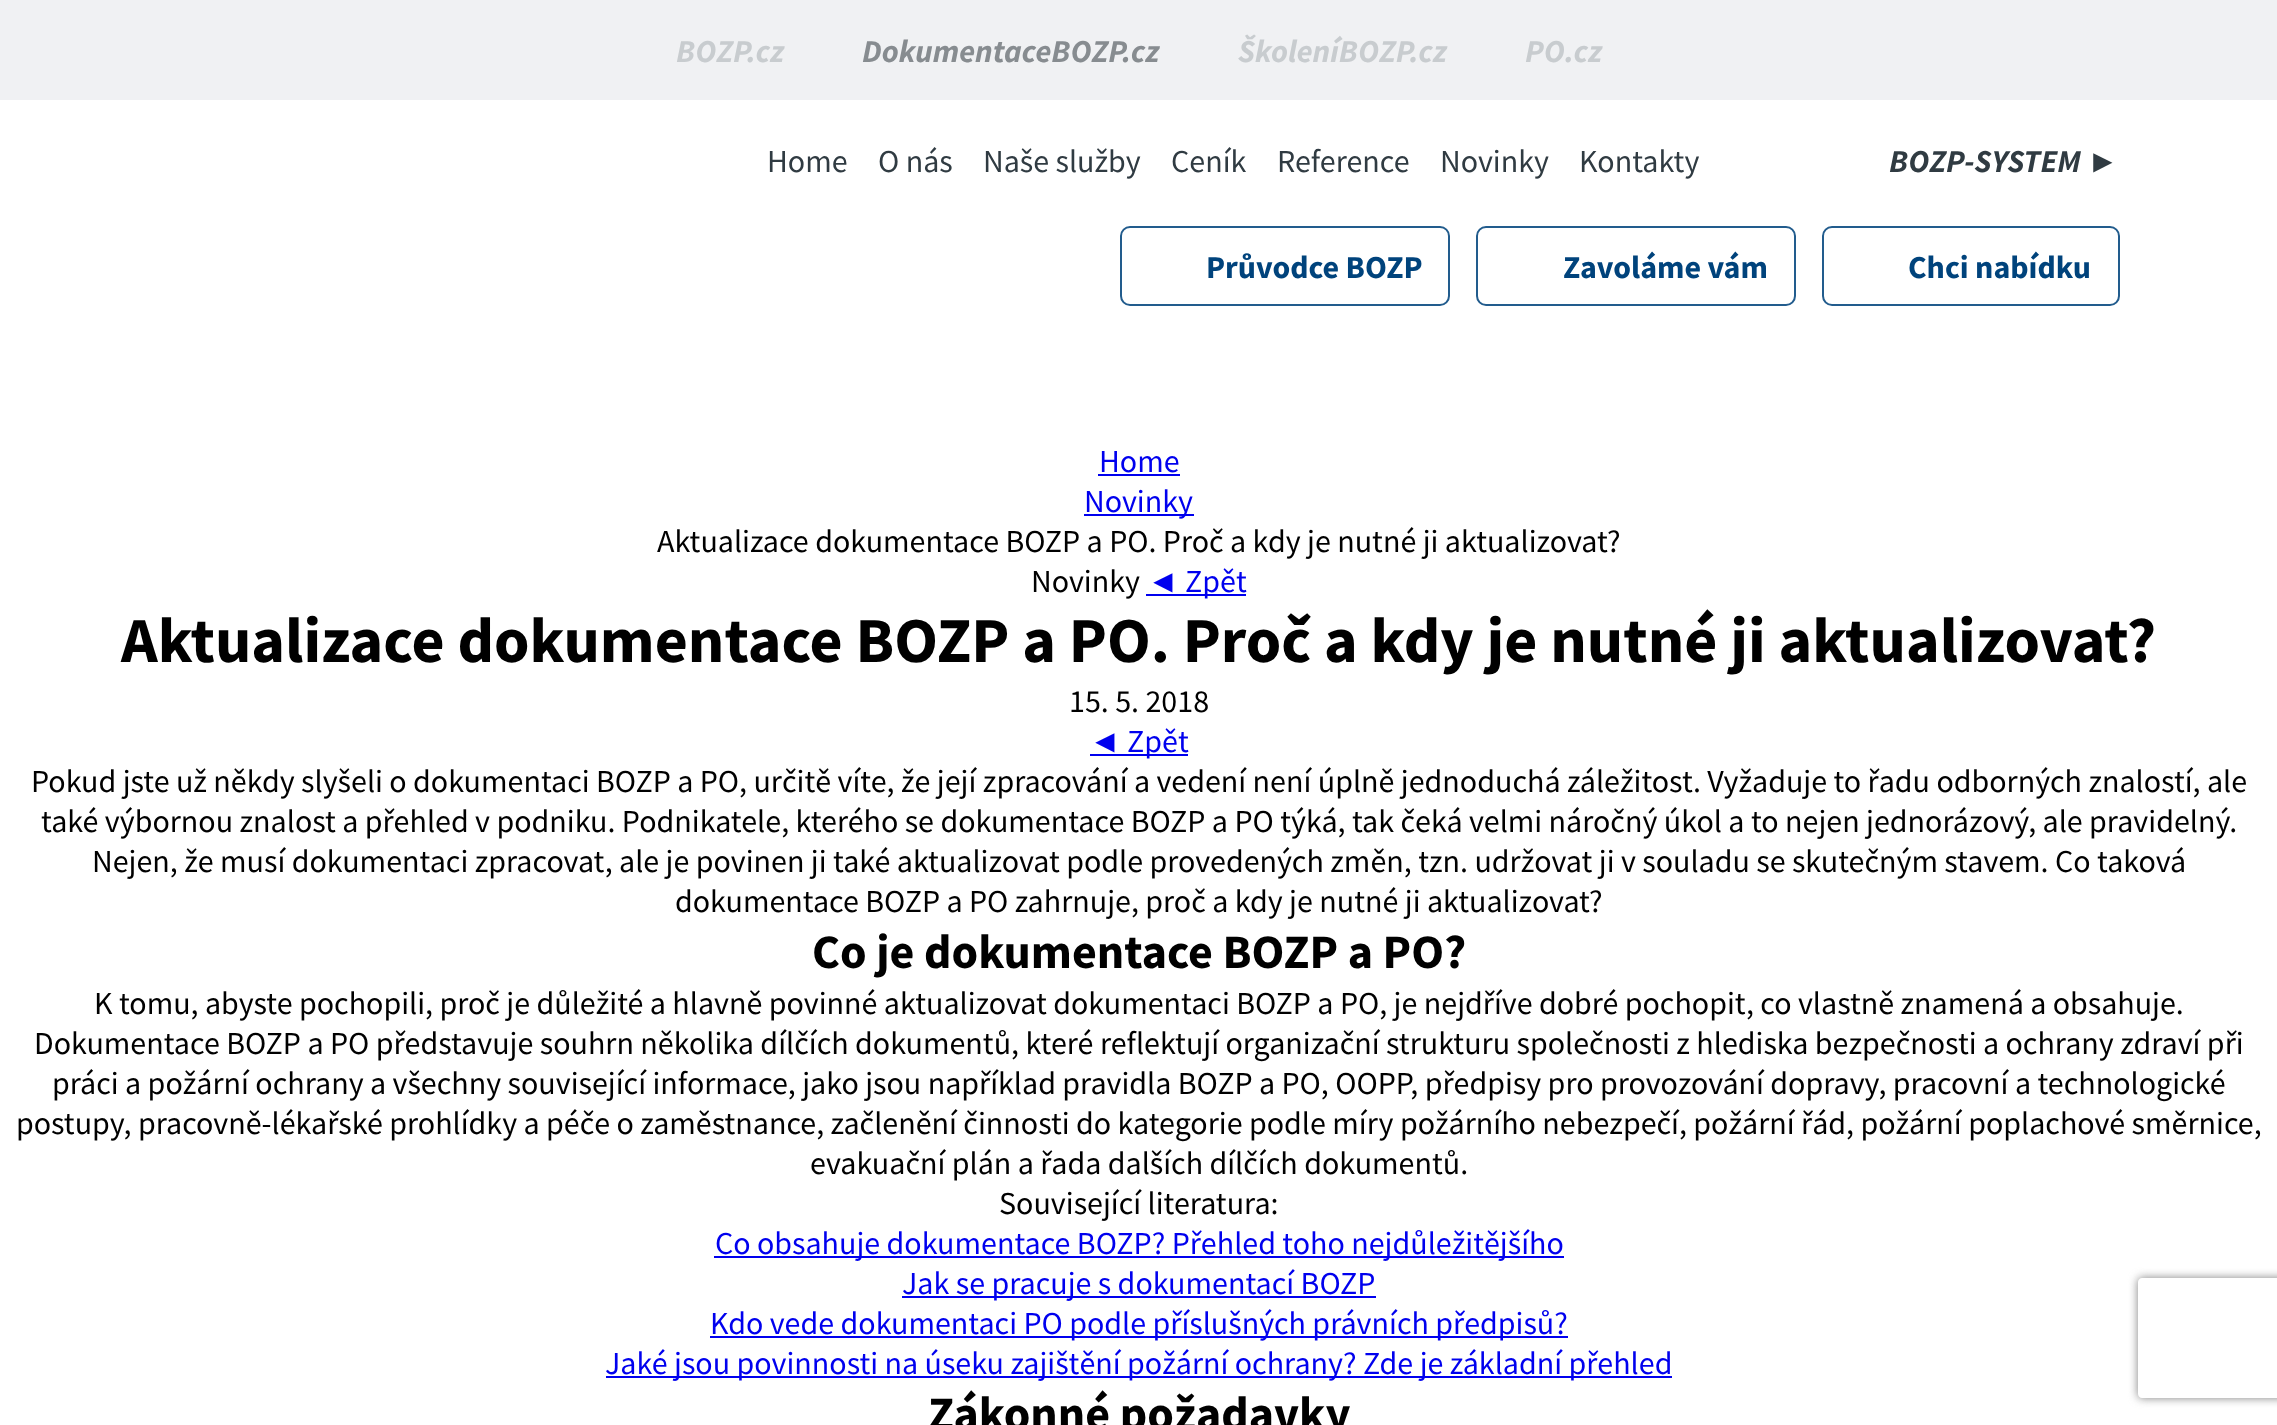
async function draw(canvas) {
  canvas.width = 2277
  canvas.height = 1425
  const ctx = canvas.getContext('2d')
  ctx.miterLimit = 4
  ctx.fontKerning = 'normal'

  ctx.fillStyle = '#fff'
  ctx.fillRect(0, 0, 2277, 1425)
  ctx.fillStyle = '#f0f1f3'
  ctx.fillRect(0, 0, 2277, 100)
  ctx.font = 'italic bold 32px Source Sans Pro'
  ctx.fillStyle = '#c8cccf'
  ctx.fillText('BOZP.cz', 676, 62)
  ctx.fillStyle = '#878c90'
  ctx.fillText('DokumentaceBOZP.cz', 862, 62)
  ctx.fillStyle = '#c8cccf'
  ctx.fillText('ŠkoleníBOZP.cz', 1238, 62)
  ctx.fillText('PO.cz', 1525, 62)
  ctx.font = '32px Source Sans Pro'
  ctx.fillStyle = '#303b42'
  ctx.fillText('Home', 767, 172)
  ctx.fillText('O nás', 878, 172)
  ctx.fillText('Naše služby', 983, 172)
  ctx.fillText('Ceník', 1171, 172)
  ctx.fillText('Reference', 1277, 172)
  ctx.fillText('Novinky', 1440, 172)
  ctx.fillText('Kontakty', 1579, 172)
  ctx.font = 'italic bold 32px Source Sans Pro'
  ctx.fillText('BOZP-SYSTEM', 1889, 172)
  ctx.font = 'italic bold 32px Liberation Sans'
  ctx.fillText('►', 2087, 172)
  ctx.beginPath()
  ctx.roundRect(1121, 227, 328, 78, 9)
  ctx.strokeStyle = '#225c8d'
  ctx.lineWidth = 2
  ctx.stroke()
  ctx.font = 'bold 32px Source Sans Pro'
  ctx.fillStyle = '#00437c'
  ctx.fillText('Průvodce BOZP', 1206, 278)
  ctx.beginPath()
  ctx.roundRect(1477, 227, 318, 78, 9)
  ctx.stroke()
  ctx.fillText('Zavoláme vám', 1563, 278)
  ctx.beginPath()
  ctx.roundRect(1823, 227, 296, 78, 9)
  ctx.stroke()
  ctx.fillText('Chci nabídku', 1908, 278)
  ctx.font = '32px Source Sans Pro'
  ctx.fillStyle = '#00e'
  ctx.fillText('Home', 1099, 472)
  ctx.fillRect(1098, 474, 82, 2)
  ctx.fillRect(1084, 514, 110, 2)
  ctx.fillText('Novinky', 1084, 512)
  ctx.fillStyle = '#000'
  ctx.fillText('Aktualizace dokumentace BOZP a PO. Proč a kdy je nutné ji aktualizovat?', 657, 552)
  ctx.fillText('Novinky', 1031, 592)
  ctx.font = '32px Liberation Sans'
  ctx.fillStyle = '#00e'
  ctx.fillText('◄', 1147, 592)
  ctx.fillRect(1146, 594, 100, 2)
  ctx.font = '32px Source Sans Pro'
  ctx.fillText('Zpět', 1185, 592)
  ctx.font = 'bold 64px Source Sans Pro'
  ctx.fillStyle = '#000'
  ctx.fillText('Aktualizace dokumentace BOZP a PO. Proč a kdy je nutné ji aktualizovat?', 121, 662)
  ctx.font = '32px Source Sans Pro'
  ctx.fillText('15. 5. 2018', 1069, 712)
  ctx.font = '32px Liberation Sans'
  ctx.fillStyle = '#00e'
  ctx.fillText('◄', 1089, 752)
  ctx.fillRect(1090, 754, 98, 2)
  ctx.font = '32px Source Sans Pro'
  ctx.fillText('Zpět', 1127, 752)
  ctx.fillStyle = '#000'
  ctx.fillText('Pokud jste už někdy slyšeli o dokumentaci BOZP a PO, určitě víte, že její zpracování a vedení není úplně jednoduchá záležitost. Vyžaduje to řadu odborných znalostí, ale', 31, 792)
  ctx.fillText('také výbornou znalost a přehled v podniku. Podnikatele, kterého se dokumentace BOZP a PO týká, tak čeká velmi náročný úkol a to nejen jednorázový, ale pravidelný.', 41, 832)
  ctx.fillText('Nejen, že musí dokumentaci zpracovat, ale je povinen ji také aktualizovat podle provedených změn, tzn. udržovat ji v souladu se skutečným stavem. Co taková', 92, 872)
  ctx.fillText('dokumentace BOZP a PO zahrnuje, proč a kdy je nutné ji aktualizovat?', 675, 912)
  ctx.font = 'bold 48px Source Sans Pro'
  ctx.fillText('Co je dokumentace BOZP a PO?', 812, 968)
  ctx.font = '32px Source Sans Pro'
  ctx.fillText('K tomu, abyste pochopili, proč je důležité a hlavně povinné aktualizovat dokumentaci BOZP a PO, je nejdříve dobré pochopit, co vlastně znamená a obsahuje.', 94, 1014)
  ctx.fillText('Dokumentace BOZP a PO představuje souhrn několika dílčích dokumentů, které reflektují organizační strukturu společnosti z hlediska bezpečnosti a ochrany zdraví při', 34, 1054)
  ctx.fillText('práci a požární ochrany a všechny související informace, jako jsou například pravidla BOZP a PO, OOPP, předpisy pro provozování dopravy, pracovní a technologické', 52, 1094)
  ctx.fillText('postupy, pracovně-lékařské prohlídky a péče o zaměstnance, začlenění činnosti do kategorie podle míry požárního nebezpečí, požární řád, požární poplachové směrnice,', 16, 1134)
  ctx.fillText('evakuační plán a řada dalších dílčích dokumentů.', 810, 1174)
  ctx.fillText('Související literatura:', 999, 1214)
  ctx.fillStyle = '#00e'
  ctx.fillRect(714, 1256, 850, 2)
  ctx.fillText('Co obsahuje dokumentace BOZP? Přehled toho nejdůležitějšího', 715, 1254)
  ctx.fillRect(902, 1296, 474, 2)
  ctx.fillText('Jak se pracuje s dokumentací BOZP', 902, 1294)
  ctx.fillRect(710, 1336, 858, 2)
  ctx.fillText('Kdo vede dokumentaci PO podle příslušných právních předpisů?', 710, 1334)
  ctx.fillRect(606, 1376, 1066, 2)
  ctx.fillText('Jaké jsou povinnosti na úseku zajištění požární ochrany? Zde je základní přehled', 605, 1374)
  ctx.font = 'bold 48px Source Sans Pro'
  ctx.fillStyle = '#000'
  ctx.fillText('Zákonné požadavky', 928, 1430)
  ctx.save()
  ctx.beginPath()
  ctx.moveTo(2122, 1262)
  ctx.lineTo(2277, 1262)
  ctx.lineTo(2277, 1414)
  ctx.lineTo(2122, 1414)
  ctx.closePath()
  ctx.moveTo(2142, 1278)
  ctx.lineTo(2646, 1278)
  ctx.bezierCurveTo(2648, 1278, 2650, 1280, 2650, 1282)
  ctx.lineTo(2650, 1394)
  ctx.bezierCurveTo(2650, 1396, 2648, 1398, 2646, 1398)
  ctx.lineTo(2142, 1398)
  ctx.bezierCurveTo(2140, 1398, 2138, 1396, 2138, 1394)
  ctx.lineTo(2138, 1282)
  ctx.bezierCurveTo(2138, 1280, 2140, 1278, 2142, 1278)
  ctx.closePath()
  ctx.clip('evenodd')
  ctx.fillStyle = '#808080'
  ctx.filter = 'blur(5px)'
  ctx.beginPath()
  ctx.roundRect(2138, 1278, 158, 120, 4)
  ctx.fill()
  ctx.filter = 'none'
  ctx.restore()
}

draw(document.querySelector('canvas'))
